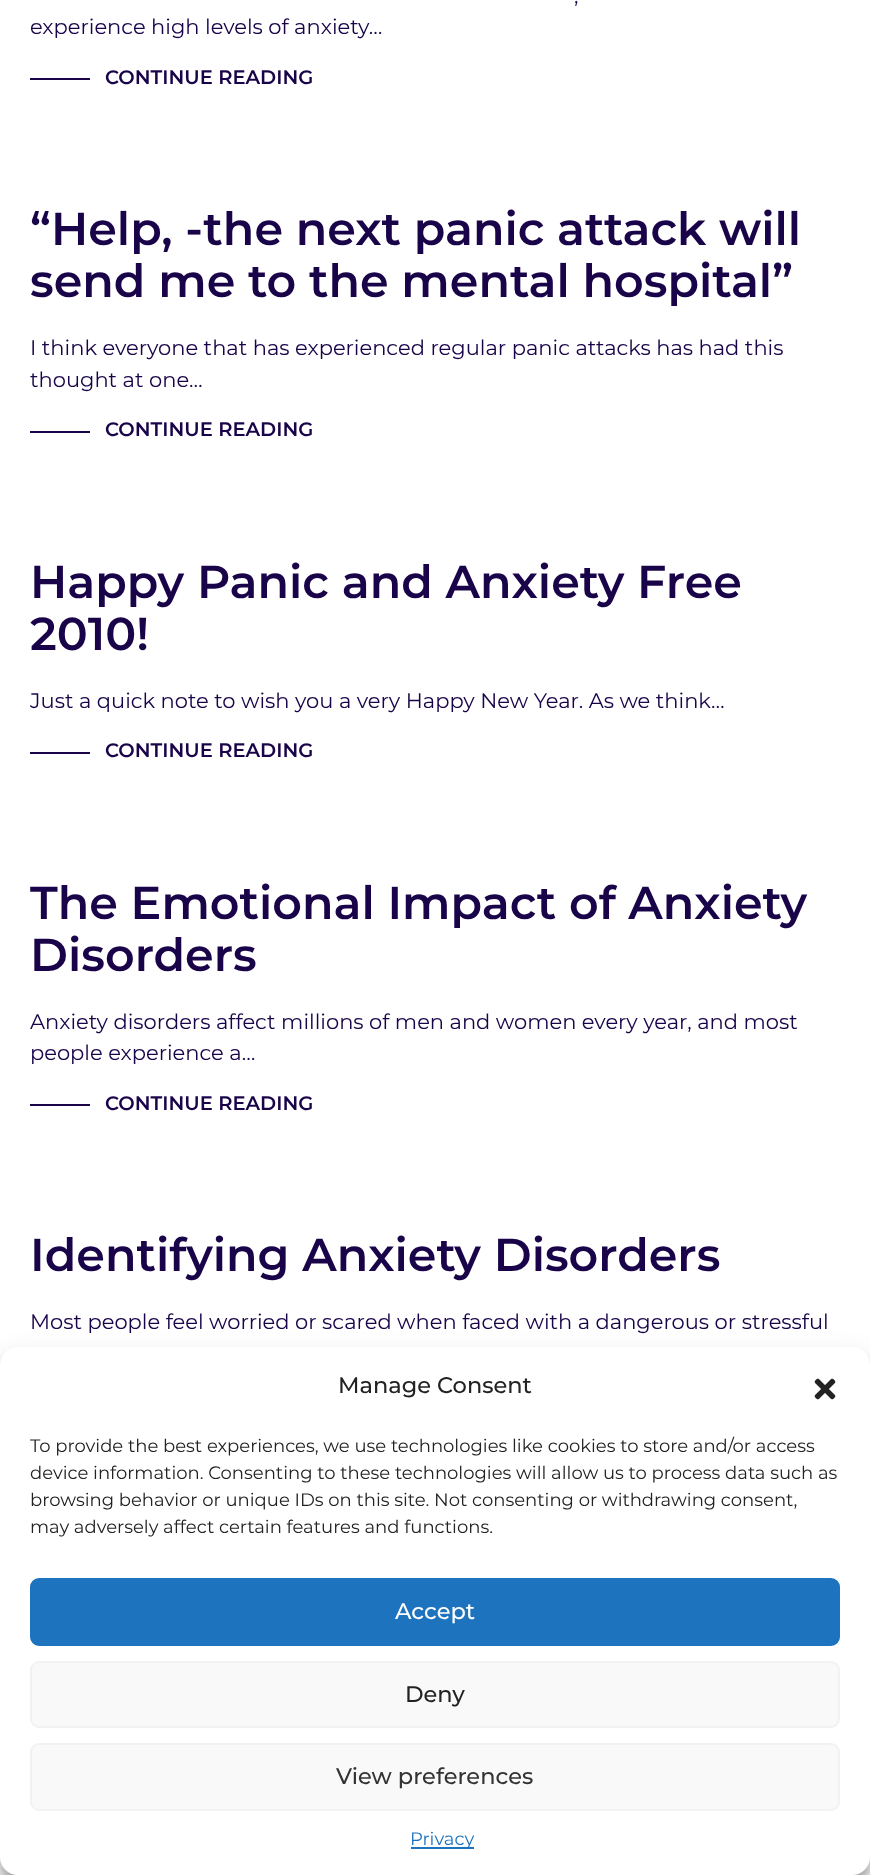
async function draw(canvas) {
  canvas.width = 870
  canvas.height = 1875
  const ctx = canvas.getContext('2d')
  ctx.miterLimit = 4
  ctx.fontKerning = 'normal'
  async function loadImage(src) {
    const img = new Image()
    img.src = src
    await img.decode()
    return img
  }

  ctx.fillStyle = '#fff'
  ctx.fillRect(0, 0, 870, 1875)
  ctx.font = '21px Montserrat'
  ctx.fillStyle = '#190449'
  ctx.fillText(',', 574, 3)
  ctx.fillText('experience high levels of anxiety…', 30, 34)
  ctx.fillRect(30, 78, 60, 2)
  ctx.font = '600 19.5px Montserrat'
  ctx.fillText('CONTINUE READING', 105, 84)
  ctx.font = '600 46px Montserrat'
  ctx.fillText('“Help, -the next panic attack will', 30, 245)
  ctx.fillText('send me to the mental hospital”', 30, 297)
  ctx.font = '21px Montserrat'
  ctx.fillText('I think everyone that has experienced regular panic attacks has had this', 30, 355)
  ctx.fillText('thought at one…', 30, 387)
  ctx.fillRect(30, 431, 60, 2)
  ctx.font = '600 19.5px Montserrat'
  ctx.fillText('CONTINUE READING', 105, 436)
  ctx.font = '600 46px Montserrat'
  ctx.fillText('Happy Panic and Anxiety Free', 30, 598)
  ctx.fillText('2010!', 30, 650)
  ctx.font = '21px Montserrat'
  ctx.fillText('Just a quick note to wish you a very Happy New Year. As we think…', 30, 708)
  ctx.fillRect(30, 752, 60, 2)
  ctx.font = '600 19.5px Montserrat'
  ctx.fillText('CONTINUE READING', 105, 757)
  ctx.font = '600 46px Montserrat'
  ctx.fillText('The Emotional Impact of Anxiety', 30, 919)
  ctx.fillText('Disorders', 30, 971)
  ctx.font = '21px Montserrat'
  ctx.fillText('Anxiety disorders affect millions of men and women every year, and most', 30, 1029)
  ctx.fillText('people experience a…', 30, 1060)
  ctx.fillRect(30, 1104, 60, 2)
  ctx.font = '600 19.5px Montserrat'
  ctx.fillText('CONTINUE READING', 105, 1110)
  ctx.font = '600 46px Montserrat'
  ctx.fillText('Identifying Anxiety Disorders', 30, 1271)
  ctx.font = '21px Montserrat'
  ctx.fillText('Most people feel worried or scared when faced with a dangerous or stressful', 30, 1329)
  ctx.fillStyle = '#0000003b'
  ctx.filter = 'blur(4.5px)'
  ctx.beginPath()
  ctx.roundRect(0, 1356, 870, 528, 18)
  ctx.fill()
  ctx.filter = 'none'
  ctx.fillStyle = '#00000030'
  ctx.filter = 'blur(15px)'
  ctx.beginPath()
  ctx.roundRect(0, 1362, 870, 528, 18)
  ctx.fill()
  ctx.filter = 'none'
  ctx.fillStyle = '#808080'
  ctx.filter = 'blur(4px)'
  ctx.beginPath()
  ctx.roundRect(765, 1764, 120, 90, 3)
  ctx.fill()
  ctx.filter = 'none'
  ctx.fillStyle = '#fff'
  ctx.beginPath()
  ctx.roundRect(0, 1347, 870, 528, 18)
  ctx.fill()
  ctx.font = '500 22.5px Montserrat'
  ctx.fillStyle = '#222'
  ctx.fillText('Manage Consent', 338, 1393)
  ctx.drawImage(await loadImage('image0.png'), 814, 1378, 22, 22)
  ctx.font = '18px Montserrat'
  ctx.fillText('To provide the best experiences, we use technologies like cookies to store and/or access', 30, 1452)
  ctx.fillText('device information. Consenting to these technologies will allow us to process data such as', 30, 1479)
  ctx.fillText('browsing behavior or unique IDs on this site. Not consenting or withdrawing consent,', 30, 1506)
  ctx.fillText('may adversely affect certain features and functions.', 30, 1533)
  ctx.fillStyle = '#1e73be'
  ctx.beginPath()
  ctx.roundRect(31, 1579, 808, 66, 8)
  ctx.fill()
  ctx.strokeStyle = '#1e73be'
  ctx.lineWidth = 2
  ctx.stroke()
  ctx.font = '500 22.5px Montserrat'
  ctx.fillStyle = '#fff'
  ctx.fillText('Accept', 395, 1619)
  ctx.fillStyle = '#f9f9f9'
  ctx.beginPath()
  ctx.roundRect(31, 1662, 808, 65, 8)
  ctx.fill()
  ctx.strokeStyle = '#f2f2f2'
  ctx.stroke()
  ctx.fillStyle = '#222'
  ctx.fillText('Deny', 405, 1702)
  ctx.fillStyle = '#f9f9f9'
  ctx.beginPath()
  ctx.roundRect(31, 1744, 808, 66, 8)
  ctx.fill()
  ctx.stroke()
  ctx.fillStyle = '#333'
  ctx.fillText('View preferences', 336, 1784)
  ctx.fillStyle = '#1e73be'
  ctx.fillRect(411, 1847, 63, 2)
  ctx.font = '18px Montserrat'
  ctx.fillText('Privacy', 410, 1845)
}

draw(document.querySelector('canvas'))
